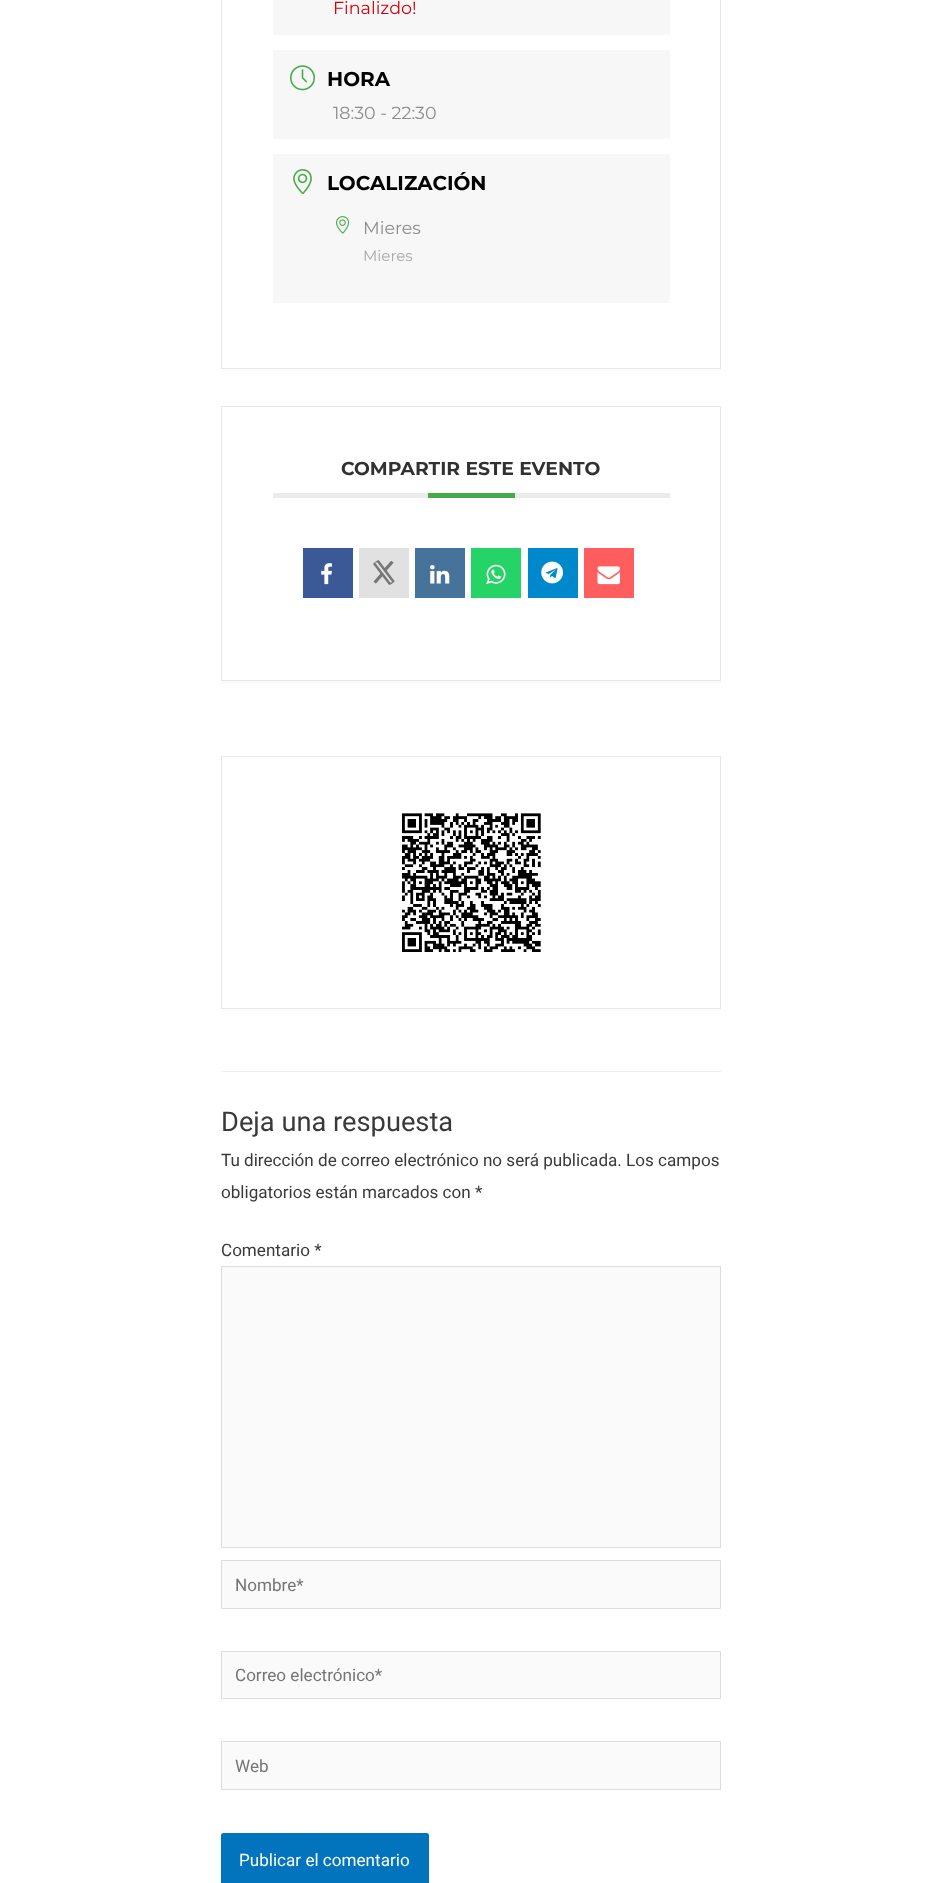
async function draw(canvas) {
  canvas.width = 941
  canvas.height = 1883
  const ctx = canvas.getContext('2d')
  ctx.miterLimit = 4
  ctx.fontKerning = 'normal'
  async function loadImage(src) {
    const img = new Image()
    img.src = src
    await img.decode()
    return img
  }

  ctx.fillStyle = '#fff'
  ctx.fillRect(0, 0, 941, 1883)
  ctx.fillStyle = '#fbfbfb'
  ctx.beginPath()
  ctx.moveTo(221, -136)
  ctx.lineTo(221, 371)
  ctx.lineTo(721, 371)
  ctx.lineTo(721, 369)
  ctx.lineTo(221, 369)
  ctx.closePath()
  ctx.fill()
  ctx.strokeStyle = '#e6e7e8'
  ctx.strokeRect(221.5, -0.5, 499, 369)
  ctx.fillStyle = '#f7f7f7'
  ctx.fillRect(273, 0, 397, 35)
  ctx.font = '17.5px Montserrat'
  ctx.fillStyle = '#d8000c'
  ctx.fillText('Finalizdo!', 333, 14)
  ctx.fillStyle = '#f7f7f7'
  ctx.fillRect(273, 50, 397, 89)
  ctx.drawImage(await loadImage('image0.png'), 290, 65, 25, 26)
  ctx.font = 'bold 20px Montserrat'
  ctx.fillStyle = '#000'
  ctx.fillText('HORA', 327, 86)
  ctx.font = '17.5px Montserrat'
  ctx.fillStyle = '#8d8d8d'
  ctx.fillText('18:30 - 22:30', 333, 119)
  ctx.fillStyle = '#f7f7f7'
  ctx.fillRect(273, 154, 397, 149)
  ctx.drawImage(await loadImage('image1.png'), 293, 169, 19, 25)
  ctx.font = 'bold 20px Montserrat'
  ctx.fillStyle = '#000'
  ctx.fillText('LOCALIZACIÓN', 327, 190)
  ctx.drawImage(await loadImage('image2.png'), 335, 216, 15, 18)
  ctx.font = '17.5px Montserrat'
  ctx.fillStyle = '#8d8d8d'
  ctx.fillText('Mieres', 363, 234)
  ctx.font = '15px Montserrat'
  ctx.fillStyle = '#a9a9a9'
  ctx.fillText('Mieres', 363, 261)
  ctx.fillStyle = '#fbfbfb'
  ctx.beginPath()
  ctx.moveTo(221, 409)
  ctx.lineTo(221, 684)
  ctx.lineTo(721, 684)
  ctx.lineTo(721, 681)
  ctx.lineTo(221, 681)
  ctx.closePath()
  ctx.fill()
  ctx.strokeRect(221.5, 406.5, 499, 274)
  ctx.fillStyle = '#ebebeb'
  ctx.fillRect(273, 493, 397, 5)
  ctx.font = 'bold 18.75px Montserrat'
  ctx.fillStyle = '#313131'
  ctx.fillText('COMPARTIR ESTE EVENTO', 341, 475)
  ctx.fillStyle = '#45ab48'
  ctx.fillRect(428, 493, 87, 5)
  ctx.fillStyle = '#3b5996'
  ctx.fillRect(303, 548, 50, 50)
  ctx.drawImage(await loadImage('image3.png'), 321, 563, 12, 22)
  ctx.fillStyle = '#e1e1e1'
  ctx.fillRect(359, 548, 50, 50)
  ctx.drawImage(await loadImage('image4.png'), 373, 560, 22, 25)
  ctx.fillStyle = '#457399'
  ctx.fillRect(415, 548, 50, 50)
  ctx.drawImage(await loadImage('image5.png'), 430, 565, 20, 19)
  ctx.fillStyle = '#25d366'
  ctx.fillRect(471, 548, 50, 50)
  ctx.drawImage(await loadImage('image6.png'), 486, 564, 20, 21)
  ctx.fillStyle = '#08c'
  ctx.fillRect(528, 548, 50, 50)
  ctx.drawImage(await loadImage('image7.png'), 541, 561, 22, 23)
  ctx.fillStyle = '#ff5d5e'
  ctx.fillRect(584, 548, 50, 50)
  ctx.drawImage(await loadImage('image8.png'), 597, 566, 23, 19)
  ctx.fillStyle = '#fbfbfb'
  ctx.beginPath()
  ctx.moveTo(221, 759)
  ctx.lineTo(221, 1011)
  ctx.lineTo(721, 1011)
  ctx.lineTo(721, 1009)
  ctx.lineTo(221, 1009)
  ctx.closePath()
  ctx.fill()
  ctx.strokeRect(221.5, 756.5, 499, 252)
  ctx.drawImage(await loadImage('image9.png'), 402, 813, 139, 139)
  ctx.fillStyle = '#eee'
  ctx.fillRect(221, 1071, 500, 1)
  ctx.font = '27.25px Roboto'
  ctx.fillStyle = '#3a3a3a'
  ctx.fillText('Deja una respuesta', 221, 1131)
  ctx.font = '17.1px Roboto'
  ctx.fillText('Tu dirección de correo electrónico no será publicada. Los campos', 221, 1166)
  ctx.fillText('obligatorios están marcados con *', 221, 1198)
  ctx.fillText('Comentario *', 221, 1256)
  ctx.fillStyle = '#fafafa'
  ctx.beginPath()
  ctx.rect(221.5, 1266.5, 499, 281)
  ctx.fill()
  ctx.strokeStyle = '#ddd'
  ctx.stroke()
  ctx.beginPath()
  ctx.rect(221.5, 1560.5, 499, 48)
  ctx.fill()
  ctx.stroke()
  ctx.fillStyle = '#757575'
  ctx.fillText('Nombre*', 235, 1591)
  ctx.fillStyle = '#fafafa'
  ctx.beginPath()
  ctx.rect(221.5, 1651.5, 499, 47)
  ctx.fill()
  ctx.stroke()
  ctx.fillStyle = '#757575'
  ctx.fillText('Correo electrónico*', 235, 1681)
  ctx.fillStyle = '#fafafa'
  ctx.beginPath()
  ctx.rect(221.5, 1741.5, 499, 48)
  ctx.fill()
  ctx.stroke()
  ctx.fillStyle = '#757575'
  ctx.fillText('Web', 235, 1772)
  ctx.fillStyle = '#0274be'
  ctx.beginPath()
  ctx.roundRect(221, 1833, 208, 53, 2.5)
  ctx.fill()
  ctx.fillStyle = '#fff'
  ctx.fillText('Publicar el comentario', 239, 1866)
}

draw(document.querySelector('canvas'))
